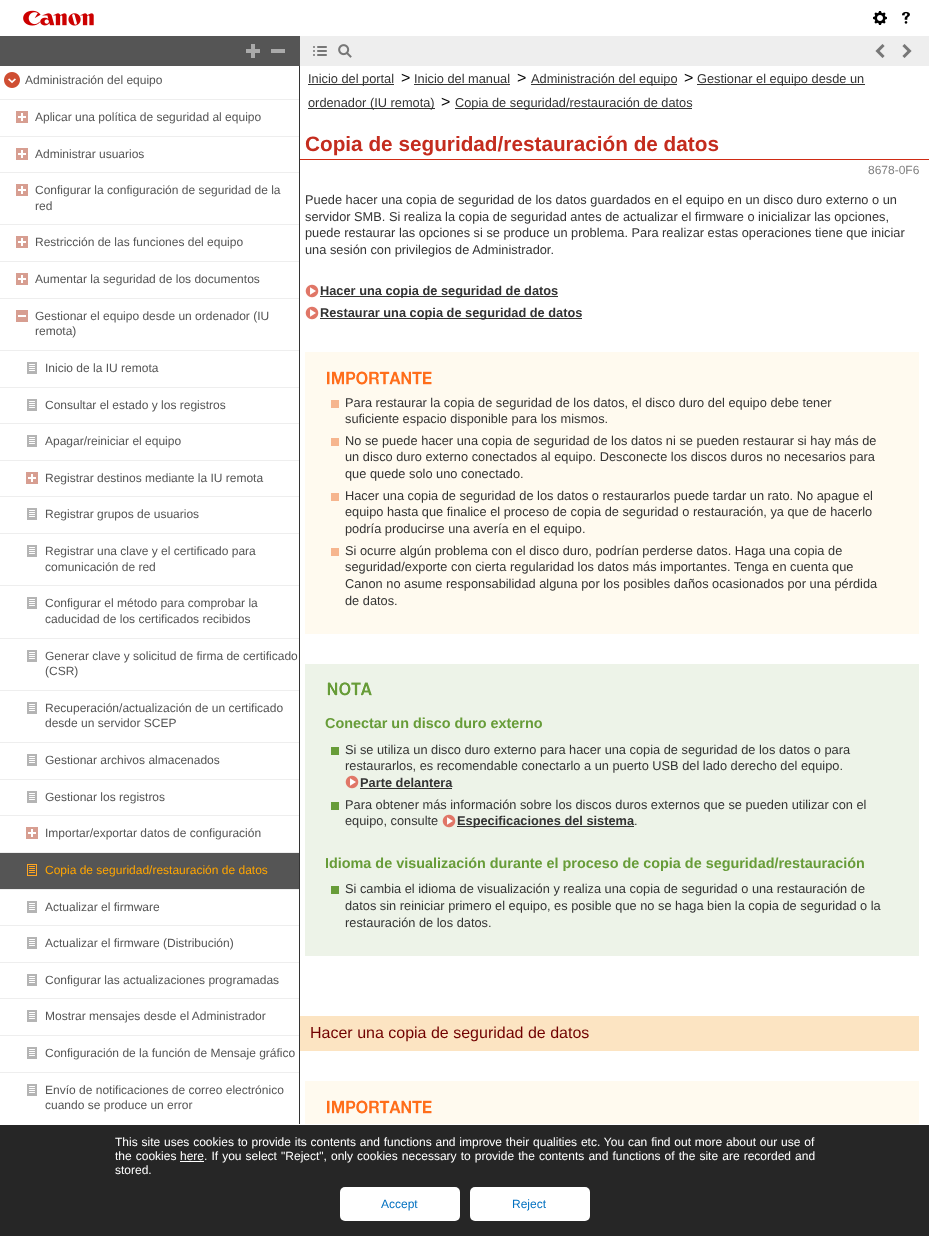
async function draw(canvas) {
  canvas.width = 929
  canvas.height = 1236
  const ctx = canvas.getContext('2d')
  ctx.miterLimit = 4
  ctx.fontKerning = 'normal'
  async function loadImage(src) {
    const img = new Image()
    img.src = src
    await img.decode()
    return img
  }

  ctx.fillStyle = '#fff'
  ctx.fillRect(0, 0, 929, 1236)
  ctx.drawImage(await loadImage('image0.png'), 23, 10, 71, 16)
  ctx.drawImage(await loadImage('image1.png'), 873, 11, 14, 14)
  ctx.drawImage(await loadImage('image2.png'), 902, 11, 8, 13)
  ctx.fillStyle = '#555'
  ctx.fillRect(0, 36, 300, 30)
  ctx.drawImage(await loadImage('image3.png'), 246, 44, 14, 14)
  ctx.fillStyle = '#aaa'
  ctx.fillRect(271, 49, 14, 4)
  ctx.fillStyle = '#eee'
  ctx.fillRect(300, 36, 629, 30)
  ctx.drawImage(await loadImage('image4.png'), 313, 46, 14, 10)
  ctx.drawImage(await loadImage('image5.png'), 338, 44, 14, 14)
  ctx.drawImage(await loadImage('image6.png'), 875, 44, 10, 14)
  ctx.drawImage(await loadImage('image7.png'), 902, 44, 10, 14)
  ctx.fillStyle = '#333'
  ctx.fillRect(299, 66, 1, 1058)
  ctx.fillStyle = '#eee'
  ctx.fillRect(0, 99, 299, 1)
  ctx.drawImage(await loadImage('image8.png'), 4, 72, 16, 16)
  ctx.font = '12px Liberation Sans'
  ctx.fillStyle = '#555'
  ctx.fillText('Administración del equipo', 25, 84)
  ctx.fillStyle = '#eee'
  ctx.fillRect(0, 136, 299, 1)
  ctx.fillStyle = '#d79e91'
  ctx.fillRect(16, 111, 12, 12)
  ctx.fillStyle = '#fff'
  ctx.fillRect(21, 113, 2, 8)
  ctx.fillRect(18, 116, 8, 2)
  ctx.fillStyle = '#555'
  ctx.fillText('Aplicar una política de seguridad al equipo', 35, 121)
  ctx.fillStyle = '#eee'
  ctx.fillRect(0, 172, 299, 1)
  ctx.fillStyle = '#d79e91'
  ctx.fillRect(16, 148, 12, 12)
  ctx.fillStyle = '#fff'
  ctx.fillRect(21, 150, 2, 8)
  ctx.fillRect(18, 153, 8, 2)
  ctx.fillStyle = '#555'
  ctx.fillText('Administrar usuarios', 35, 158)
  ctx.fillStyle = '#eee'
  ctx.fillRect(0, 224, 299, 1)
  ctx.fillStyle = '#d79e91'
  ctx.fillRect(16, 184, 12, 12)
  ctx.fillStyle = '#fff'
  ctx.fillRect(21, 186, 2, 8)
  ctx.fillRect(18, 189, 8, 2)
  ctx.fillStyle = '#555'
  ctx.fillText('Configurar la configuración de seguridad de la', 35, 194)
  ctx.fillText('red', 35, 210)
  ctx.fillStyle = '#eee'
  ctx.fillRect(0, 261, 299, 1)
  ctx.fillStyle = '#d79e91'
  ctx.fillRect(16, 236, 12, 12)
  ctx.fillStyle = '#fff'
  ctx.fillRect(21, 238, 2, 8)
  ctx.fillRect(18, 241, 8, 2)
  ctx.fillStyle = '#555'
  ctx.fillText('Restricción de las funciones del equipo', 35, 246)
  ctx.fillStyle = '#eee'
  ctx.fillRect(0, 298, 299, 1)
  ctx.fillStyle = '#d79e91'
  ctx.fillRect(16, 273, 12, 12)
  ctx.fillStyle = '#fff'
  ctx.fillRect(21, 275, 2, 8)
  ctx.fillRect(18, 278, 8, 2)
  ctx.fillStyle = '#555'
  ctx.fillText('Aumentar la seguridad de los documentos', 35, 283)
  ctx.fillStyle = '#eee'
  ctx.fillRect(0, 350, 299, 1)
  ctx.fillStyle = '#d79e91'
  ctx.fillRect(16, 310, 12, 12)
  ctx.fillStyle = '#fff'
  ctx.fillRect(18, 315, 8, 2)
  ctx.fillStyle = '#555'
  ctx.fillText('Gestionar el equipo desde un ordenador (IU', 35, 320)
  ctx.fillText('remota)', 35, 335)
  ctx.fillStyle = '#eee'
  ctx.fillRect(0, 387, 299, 1)
  ctx.drawImage(await loadImage('image9.png'), 27, 362, 10, 12)
  ctx.fillStyle = '#555'
  ctx.fillText('Inicio de la IU remota', 45, 372)
  ctx.fillStyle = '#eee'
  ctx.fillRect(0, 423, 299, 1)
  ctx.drawImage(await loadImage('image9.png'), 27, 399, 10, 12)
  ctx.fillStyle = '#555'
  ctx.fillText('Consultar el estado y los registros', 45, 409)
  ctx.fillStyle = '#eee'
  ctx.fillRect(0, 460, 299, 1)
  ctx.drawImage(await loadImage('image9.png'), 27, 435, 10, 12)
  ctx.fillStyle = '#555'
  ctx.fillText('Apagar/reiniciar el equipo', 45, 445)
  ctx.fillStyle = '#eee'
  ctx.fillRect(0, 496, 299, 1)
  ctx.fillStyle = '#d79e91'
  ctx.fillRect(26, 472, 12, 12)
  ctx.fillStyle = '#fff'
  ctx.fillRect(31, 474, 2, 8)
  ctx.fillRect(28, 477, 8, 2)
  ctx.fillStyle = '#555'
  ctx.fillText('Registrar destinos mediante la IU remota', 45, 482)
  ctx.fillStyle = '#eee'
  ctx.fillRect(0, 533, 299, 1)
  ctx.drawImage(await loadImage('image9.png'), 27, 508, 10, 12)
  ctx.fillStyle = '#555'
  ctx.fillText('Registrar grupos de usuarios', 45, 518)
  ctx.fillStyle = '#eee'
  ctx.fillRect(0, 585, 299, 1)
  ctx.drawImage(await loadImage('image9.png'), 27, 545, 10, 12)
  ctx.fillStyle = '#555'
  ctx.fillText('Registrar una clave y el certificado para', 45, 555)
  ctx.fillText('comunicación de red', 45, 571)
  ctx.fillStyle = '#eee'
  ctx.fillRect(0, 638, 299, 1)
  ctx.drawImage(await loadImage('image9.png'), 27, 597, 10, 12)
  ctx.fillStyle = '#555'
  ctx.fillText('Configurar el método para comprobar la', 45, 607)
  ctx.fillText('caducidad de los certificados recibidos', 45, 623)
  ctx.fillStyle = '#eee'
  ctx.fillRect(0, 690, 299, 1)
  ctx.drawImage(await loadImage('image9.png'), 27, 650, 10, 12)
  ctx.fillStyle = '#555'
  ctx.fillText('Generar clave y solicitud de firma de certificado', 45, 660)
  ctx.fillText('(CSR)', 45, 675)
  ctx.fillStyle = '#eee'
  ctx.fillRect(0, 742, 299, 1)
  ctx.drawImage(await loadImage('image9.png'), 27, 702, 10, 12)
  ctx.fillStyle = '#555'
  ctx.fillText('Recuperación/actualización de un certificado', 45, 712)
  ctx.fillText('desde un servidor SCEP', 45, 727)
  ctx.fillStyle = '#eee'
  ctx.fillRect(0, 779, 299, 1)
  ctx.drawImage(await loadImage('image9.png'), 27, 754, 10, 12)
  ctx.fillStyle = '#555'
  ctx.fillText('Gestionar archivos almacenados', 45, 764)
  ctx.fillStyle = '#eee'
  ctx.fillRect(0, 815, 299, 1)
  ctx.drawImage(await loadImage('image9.png'), 27, 791, 10, 12)
  ctx.fillStyle = '#555'
  ctx.fillText('Gestionar los registros', 45, 801)
  ctx.fillStyle = '#eee'
  ctx.fillRect(0, 852, 299, 1)
  ctx.fillStyle = '#d79e91'
  ctx.fillRect(26, 827, 12, 12)
  ctx.fillStyle = '#fff'
  ctx.fillRect(31, 829, 2, 8)
  ctx.fillRect(28, 832, 8, 2)
  ctx.fillStyle = '#555'
  ctx.fillText('Importar/exportar datos de configuración', 45, 837)
  ctx.fillRect(0, 853, 299, 36)
  ctx.fillStyle = '#eee'
  ctx.fillRect(0, 889, 299, 1)
  ctx.drawImage(await loadImage('image10.png'), 27, 864, 10, 12)
  ctx.fillStyle = '#ffa500'
  ctx.fillText('Copia de seguridad/restauración de datos', 45, 874)
  ctx.fillStyle = '#eee'
  ctx.fillRect(0, 925, 299, 1)
  ctx.drawImage(await loadImage('image9.png'), 27, 901, 10, 12)
  ctx.fillStyle = '#555'
  ctx.fillText('Actualizar el firmware', 45, 911)
  ctx.fillStyle = '#eee'
  ctx.fillRect(0, 962, 299, 1)
  ctx.drawImage(await loadImage('image9.png'), 27, 937, 10, 12)
  ctx.fillStyle = '#555'
  ctx.fillText('Actualizar el firmware (Distribución)', 45, 947)
  ctx.fillStyle = '#eee'
  ctx.fillRect(0, 998, 299, 1)
  ctx.drawImage(await loadImage('image9.png'), 27, 974, 10, 12)
  ctx.fillStyle = '#555'
  ctx.fillText('Configurar las actualizaciones programadas', 45, 984)
  ctx.fillStyle = '#eee'
  ctx.fillRect(0, 1035, 299, 1)
  ctx.drawImage(await loadImage('image9.png'), 27, 1010, 10, 12)
  ctx.fillStyle = '#555'
  ctx.fillText('Mostrar mensajes desde el Administrador', 45, 1020)
  ctx.fillStyle = '#eee'
  ctx.fillRect(0, 1072, 299, 1)
  ctx.drawImage(await loadImage('image9.png'), 27, 1047, 10, 12)
  ctx.fillStyle = '#555'
  ctx.fillText('Configuración de la función de Mensaje gráfico', 45, 1057)
  ctx.drawImage(await loadImage('image9.png'), 27, 1084, 10, 12)
  ctx.fillText('Envío de notificaciones de correo electrónico', 45, 1094)
  ctx.fillText('cuando se produce un error', 45, 1109)
  ctx.fillStyle = '#333'
  ctx.fillRect(308, 84, 86, 1)
  ctx.font = '12.8px Liberation Sans'
  ctx.fillText('Inicio del portal', 308, 83)
  ctx.font = '16px Liberation Sans'
  ctx.fillStyle = '#000'
  ctx.fillText('>', 401, 83)
  ctx.font = '12.8px Liberation Sans'
  ctx.fillStyle = '#333'
  ctx.fillText('Inicio del manual', 414, 83)
  ctx.fillRect(414, 84, 96, 1)
  ctx.font = '16px Liberation Sans'
  ctx.fillStyle = '#000'
  ctx.fillText('>', 517, 83)
  ctx.fillStyle = '#333'
  ctx.fillRect(531, 84, 146, 1)
  ctx.font = '12.8px Liberation Sans'
  ctx.fillText('Administración del equipo', 531, 83)
  ctx.font = '16px Liberation Sans'
  ctx.fillStyle = '#000'
  ctx.fillText('>', 684, 83)
  ctx.fillStyle = '#333'
  ctx.fillRect(697, 84, 168, 1)
  ctx.font = '12.8px Liberation Sans'
  ctx.fillText('Gestionar el equipo desde un', 697, 83)
  ctx.fillRect(308, 108, 127, 1)
  ctx.fillText('ordenador (IU remota)', 308, 107)
  ctx.font = '16px Liberation Sans'
  ctx.fillStyle = '#000'
  ctx.fillText('>', 441, 107)
  ctx.fillStyle = '#333'
  ctx.fillRect(455, 108, 237, 1)
  ctx.font = '12.8px Liberation Sans'
  ctx.fillText('Copia de seguridad/restauración de datos', 455, 107)
  ctx.fillStyle = '#d02b14'
  ctx.fillRect(300, 159, 629, 1)
  ctx.font = 'bold 20.75px Liberation Sans'
  ctx.fillStyle = '#c42c1e'
  ctx.fillText('Copia de seguridad/restauración de datos', 305, 151)
  ctx.font = '12px Liberation Sans'
  ctx.fillStyle = '#808080'
  ctx.fillText('8678-0F6', 868, 174)
  ctx.font = '12.8px Liberation Sans'
  ctx.fillStyle = '#333'
  ctx.fillText('Puede hacer una copia de seguridad de los datos guardados en el equipo en un disco duro externo o un', 305, 204)
  ctx.fillText('servidor SMB. Si realiza la copia de seguridad antes de actualizar el firmware o inicializar las opciones,', 305, 221)
  ctx.fillText('puede restaurar las opciones si se produce un problema. Para realizar estas operaciones tiene que iniciar', 305, 237)
  ctx.fillText('una sesión con privilegios de Administrador.', 305, 254)
  ctx.drawImage(await loadImage('image11.png'), 305, 284, 14, 14)
  ctx.fillStyle = '#353535'
  ctx.fillRect(320, 296, 238, 1)
  ctx.font = 'bold 12.8px Liberation Sans'
  ctx.fillStyle = '#333'
  ctx.fillText('Hacer una copia de seguridad de datos', 320, 295)
  ctx.drawImage(await loadImage('image11.png'), 305, 306, 14, 14)
  ctx.fillStyle = '#353535'
  ctx.fillRect(320, 318, 262, 1)
  ctx.fillStyle = '#333'
  ctx.fillText('Restaurar una copia de seguridad de datos', 320, 317)
  ctx.fillStyle = '#fffaef'
  ctx.fillRect(305, 352, 614, 282)
  ctx.drawImage(await loadImage('image12.png'), 327, 371, 105, 14)
  ctx.fillStyle = '#f6b58e'
  ctx.fillRect(331, 400, 8, 8)
  ctx.font = '12.8px Liberation Sans'
  ctx.fillStyle = '#333'
  ctx.fillText('Para restaurar la copia de seguridad de los datos, el disco duro del equipo debe tener', 345, 407)
  ctx.fillText('suficiente espacio disponible para los mismos.', 345, 423)
  ctx.fillStyle = '#f6b58e'
  ctx.fillRect(331, 438, 8, 8)
  ctx.fillStyle = '#333'
  ctx.fillText('No se puede hacer una copia de seguridad de los datos ni se pueden restaurar si hay más de', 345, 445)
  ctx.fillText('un disco duro externo conectados al equipo. Desconecte los discos duros no necesarios para', 345, 461)
  ctx.fillText('que quede solo uno conectado.', 345, 478)
  ctx.fillStyle = '#f6b58e'
  ctx.fillRect(331, 493, 8, 8)
  ctx.fillStyle = '#333'
  ctx.fillText('Hacer una copia de seguridad de los datos o restaurarlos puede tardar un rato. No apague el', 345, 500)
  ctx.fillText('equipo hasta que finalice el proceso de copia de seguridad o restauración, ya que de hacerlo', 345, 516)
  ctx.fillText('podría producirse una avería en el equipo.', 345, 533)
  ctx.fillStyle = '#f6b58e'
  ctx.fillRect(331, 548, 8, 8)
  ctx.fillStyle = '#333'
  ctx.fillText('Si ocurre algún problema con el disco duro, podrían perderse datos. Haga una copia de', 345, 555)
  ctx.fillText('seguridad/exporte con cierta regularidad los datos más importantes. Tenga en cuenta que', 345, 571)
  ctx.fillText('Canon no asume responsabilidad alguna por los posibles daños ocasionados por una pérdida', 345, 588)
  ctx.fillText('de datos.', 345, 605)
  ctx.fillStyle = '#edf3e8'
  ctx.fillRect(305, 664, 614, 292)
  ctx.drawImage(await loadImage('image13.png'), 327, 682, 45, 14)
  ctx.font = 'bold 14.4px Liberation Sans'
  ctx.fillStyle = '#679c38'
  ctx.fillText('Conectar un disco duro externo', 325, 728)
  ctx.fillRect(331, 747, 8, 8)
  ctx.font = '12.8px Liberation Sans'
  ctx.fillStyle = '#333'
  ctx.fillText('Si se utiliza un disco duro externo para hacer una copia de seguridad de los datos o para', 345, 754)
  ctx.fillText('restaurarlos, es recomendable conectarlo a un puerto USB del lado derecho del equipo.', 345, 770)
  ctx.drawImage(await loadImage('image14.png'), 345, 775, 14, 14)
  ctx.font = 'bold 12.8px Liberation Sans'
  ctx.fillText('Parte delantera', 360, 787)
  ctx.fillStyle = '#353535'
  ctx.fillRect(360, 788, 92, 1)
  ctx.fillStyle = '#679c38'
  ctx.fillRect(331, 802, 8, 8)
  ctx.font = '12.8px Liberation Sans'
  ctx.fillStyle = '#333'
  ctx.fillText('Para obtener más información sobre los discos duros externos que se pueden utilizar con el', 345, 809)
  ctx.fillText('equipo, consulte', 345, 825)
  ctx.drawImage(await loadImage('image14.png'), 442, 814, 14, 14)
  ctx.fillStyle = '#353535'
  ctx.fillRect(457, 826, 177, 1)
  ctx.font = 'bold 12.8px Liberation Sans'
  ctx.fillStyle = '#333'
  ctx.fillText('Especificaciones del sistema', 457, 825)
  ctx.font = '12.8px Liberation Sans'
  ctx.fillText('.', 634, 825)
  ctx.font = 'bold 14.4px Liberation Sans'
  ctx.fillStyle = '#679c38'
  ctx.fillText('Idioma de visualización durante el proceso de copia de seguridad/restauración', 325, 868)
  ctx.fillRect(331, 886, 8, 8)
  ctx.font = '12.8px Liberation Sans'
  ctx.fillStyle = '#333'
  ctx.fillText('Si cambia el idioma de visualización y realiza una copia de seguridad o una restauración de', 345, 893)
  ctx.fillText('datos sin reiniciar primero el equipo, es posible que no se haga bien la copia de seguridad o la', 345, 910)
  ctx.fillText('restauración de los datos.', 345, 927)
  ctx.fillStyle = '#fce4c2'
  ctx.fillRect(300, 1016, 619, 35)
  ctx.font = '16px Liberation Sans'
  ctx.fillStyle = '#710000'
  ctx.fillText('Hacer una copia de seguridad de datos', 310, 1038)
  ctx.fillStyle = '#fffaef'
  ctx.fillRect(305, 1081, 614, 43)
  ctx.drawImage(await loadImage('image12.png'), 327, 1100, 105, 14)
  ctx.fillStyle = '#262626'
  ctx.fillRect(0, 1125, 929, 111)
  ctx.wordSpacing = '0.5px'
  ctx.font = '12px Liberation Sans'
  ctx.fillStyle = '#fff'
  ctx.fillText('This site uses cookies to provide its contents and functions and improve their qualities etc. You can find out more about our use of', 115, 1146)
  ctx.wordSpacing = '0.75px'
  ctx.fillText('the cookies', 115, 1160)
  ctx.wordSpacing = '0px'
  ctx.fillText('here', 180, 1160)
  ctx.fillRect(180, 1161, 24, 1)
  ctx.wordSpacing = '0.75px'
  ctx.fillText('. If you select "Reject", only cookies necessary to provide the contents and functions of the site are recorded and', 204, 1160)
  ctx.wordSpacing = '0px'
  ctx.fillText('stored.', 115, 1174)
  ctx.beginPath()
  ctx.roundRect(340, 1187, 120, 34, 5)
  ctx.fill()
  ctx.fillStyle = '#0070c0'
  ctx.fillText('Accept', 381, 1208)
  ctx.fillStyle = '#fff'
  ctx.beginPath()
  ctx.roundRect(470, 1187, 120, 34, 5)
  ctx.fill()
  ctx.fillStyle = '#0070c0'
  ctx.fillText('Reject', 512, 1208)
}

draw(document.querySelector('canvas'))
